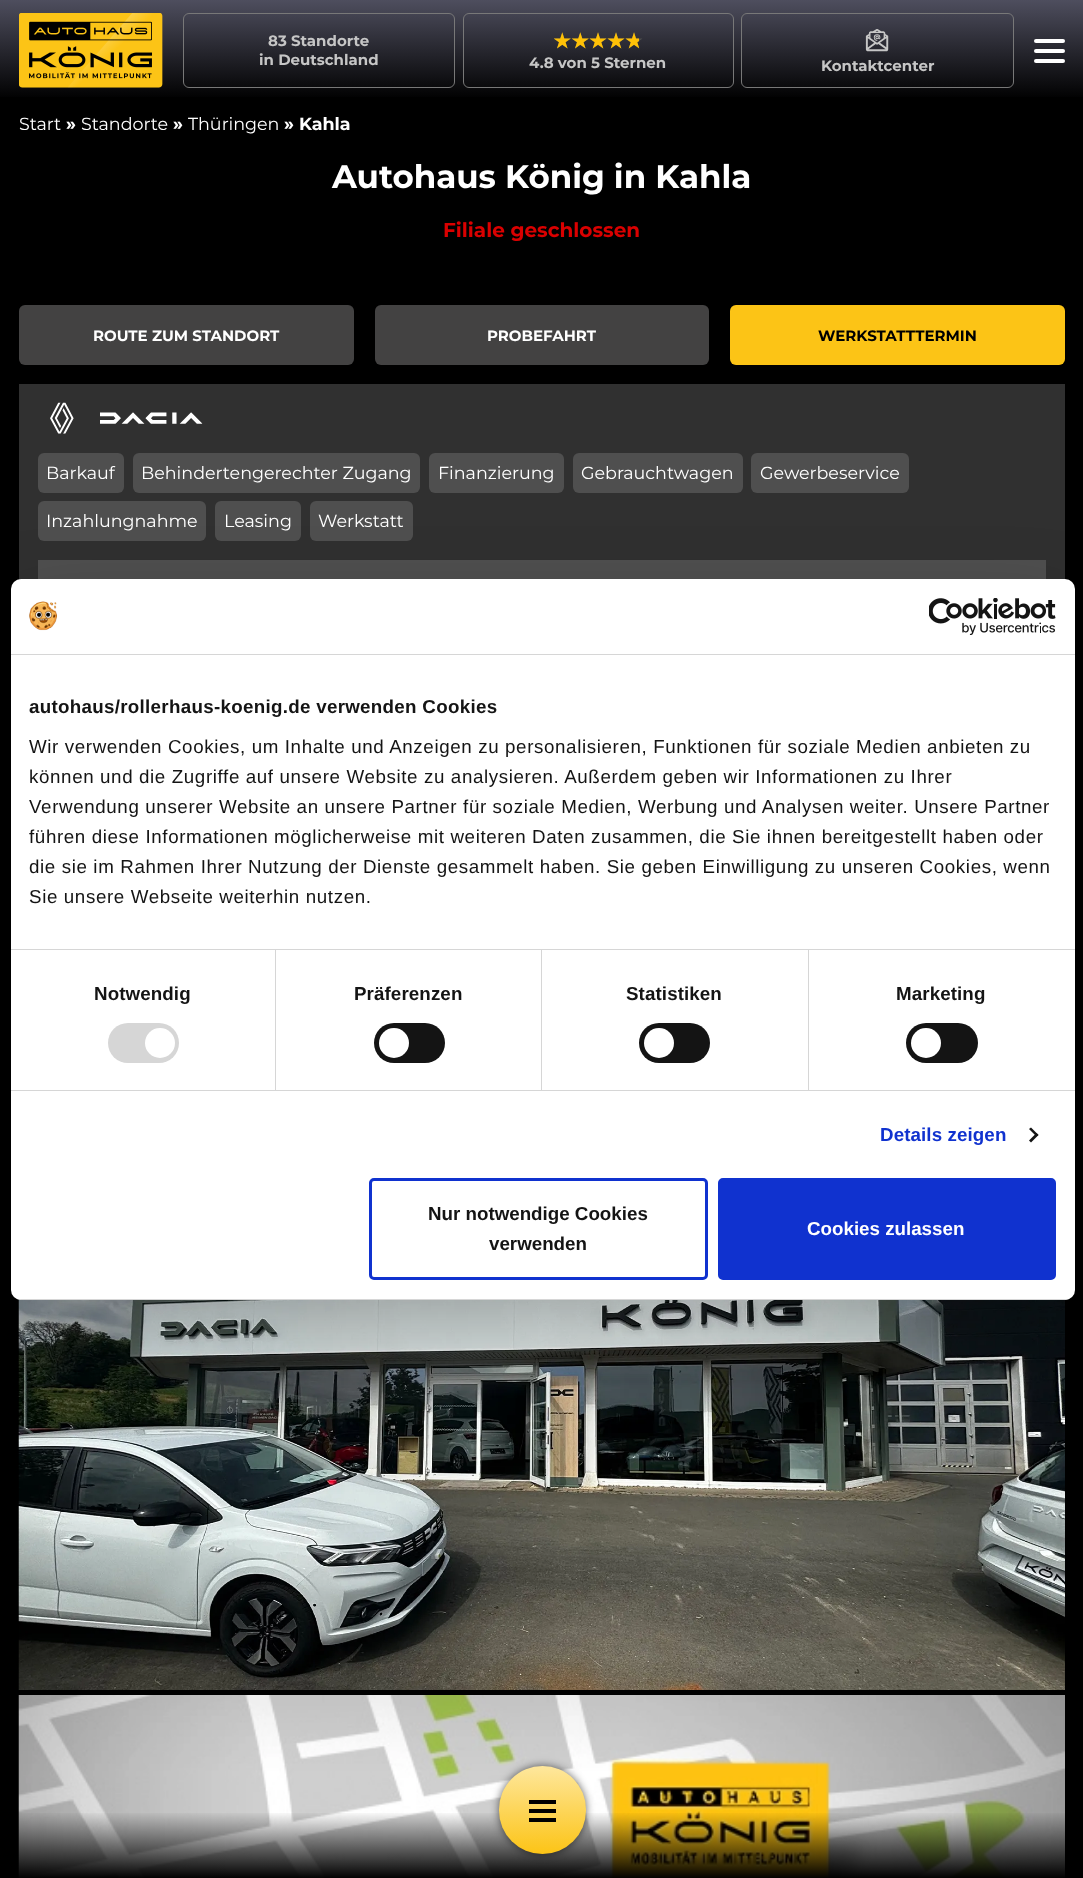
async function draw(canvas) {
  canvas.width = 1083
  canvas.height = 1878
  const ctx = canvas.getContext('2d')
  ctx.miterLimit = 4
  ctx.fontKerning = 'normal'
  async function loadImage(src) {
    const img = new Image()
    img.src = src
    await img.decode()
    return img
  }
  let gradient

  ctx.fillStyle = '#000'
  ctx.fillRect(0, 0, 1083, 1878)
  gradient = ctx.createLinearGradient(542, 0, 542, 100)
  gradient.addColorStop(0, '#4e4e5e')
  gradient.addColorStop(1, '#000')
  ctx.fillStyle = gradient
  ctx.fillRect(0, 0, 1083, 97)
  ctx.drawImage(await loadImage('image0.png'), 19, 13, 144, 75)
  ctx.beginPath()
  ctx.roundRect(183.5, 13.5, 271, 74, 5.5)
  ctx.strokeStyle = '#787878'
  ctx.stroke()
  ctx.font = 'bold 15px Montserrat'
  ctx.fillStyle = '#c6c6c6'
  ctx.fillText('83 Standorte', 268, 46)
  ctx.fillText('in Deutschland', 259, 65)
  ctx.beginPath()
  ctx.roundRect(463.5, 13.5, 270, 74, 5.5)
  ctx.stroke()
  ctx.font = 'bold 20px DejaVu Sans'
  ctx.fillStyle = '#4f4f4f'
  ctx.fillText('★★★★★', 553, 48)
  ctx.save()
  ctx.beginPath()
  ctx.rect(554, 29, 85, 24)
  ctx.clip()
  ctx.fillStyle = '#ffc107'
  ctx.fillText('★★★★★', 553, 48)
  ctx.restore()
  ctx.font = 'bold 15px Montserrat'
  ctx.fillStyle = '#c6c6c6'
  ctx.fillText('4.8 von 5 Sternen', 529, 68)
  ctx.fillStyle = '#fff'
  ctx.beginPath()
  ctx.roundRect(1034, 39, 31, 4, 2)
  ctx.fill()
  ctx.beginPath()
  ctx.roundRect(1034, 49, 31, 4, 2)
  ctx.fill()
  ctx.beginPath()
  ctx.roundRect(1034, 59, 31, 4, 2)
  ctx.fill()
  ctx.beginPath()
  ctx.roundRect(741.5, 13.5, 272, 74, 5.5)
  ctx.stroke()
  ctx.drawImage(await loadImage('image1.png'), 865, 29, 24, 23)
  ctx.fillStyle = '#c6c6c6'
  ctx.fillText('Kontaktcenter', 821, 71)
  ctx.drawImage(await loadImage('image5.png'), 18, 1695, 1047, 183)
  gradient = ctx.createLinearGradient(542, 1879, 542, 1766)
  gradient.addColorStop(0, '#000')
  gradient.addColorStop(0.6, '#00000000')
  ctx.fillStyle = gradient
  ctx.fillRect(18, 1813, 1047, 65)
  ctx.fillStyle = '#00000099'
  ctx.filter = 'blur(4px)'
  ctx.beginPath()
  ctx.roundRect(499, 1766, 87, 88, 43.5)
  ctx.fill()
  ctx.filter = 'none'
  gradient = ctx.createLinearGradient(543, 1766, 543, 1854)
  gradient.addColorStop(0, '#fee79d')
  gradient.addColorStop(1, '#fcc416')
  ctx.fillStyle = gradient
  ctx.beginPath()
  ctx.roundRect(499, 1766, 87, 88, 43.5)
  ctx.fill()
  ctx.fillStyle = '#000'
  ctx.fillRect(529, 1800, 27, 4)
  ctx.fillRect(529, 1809, 27, 4)
  ctx.fillRect(529, 1818, 27, 4)
  ctx.font = '17.5px Montserrat'
  ctx.fillStyle = '#fff'
  ctx.fillText('Start', 19, 130)
  ctx.font = 'bold 17.5px Montserrat'
  ctx.fillText('»', 66, 130)
  ctx.font = '17.5px Montserrat'
  ctx.fillText('Standorte', 81, 130)
  ctx.font = 'bold 17.5px Montserrat'
  ctx.fillText('»', 173, 130)
  ctx.font = '17.5px Montserrat'
  ctx.fillText('Thüringen', 188, 130)
  ctx.font = 'bold 17.5px Montserrat'
  ctx.fillText('» Kahla', 284, 130)
  ctx.font = 'bold 32.5px Montserrat'
  ctx.fillText('Autohaus König in Kahla', 332, 188)
  ctx.font = 'bold 20px Montserrat'
  ctx.fillStyle = '#da0000'
  ctx.fillText('Filiale geschlossen', 443, 237)
  ctx.fillStyle = '#434242'
  ctx.beginPath()
  ctx.roundRect(19, 305, 335, 60, 6)
  ctx.fill()
  ctx.font = 'bold 15px Montserrat'
  ctx.fillStyle = '#fff'
  ctx.fillText('ROUTE ZUM STANDORT', 93, 341)
  ctx.fillStyle = '#434242'
  ctx.beginPath()
  ctx.roundRect(375, 305, 334, 60, 6)
  ctx.fill()
  ctx.fillStyle = '#fff'
  ctx.fillText('PROBEFAHRT', 487, 341)
  ctx.fillStyle = '#fcc416'
  ctx.beginPath()
  ctx.roundRect(730, 305, 335, 60, 6)
  ctx.fill()
  ctx.fillStyle = '#000'
  ctx.fillText('WERKSTATTTERMIN', 818, 341)
  ctx.fillStyle = '#303030'
  ctx.fillRect(19, 384, 1046, 196)
  ctx.drawImage(await loadImage('image2.png'), 50, 402, 24, 32)
  ctx.drawImage(await loadImage('image3.png'), 100, 412, 103, 12)
  ctx.fillStyle = '#4f4f4f'
  ctx.beginPath()
  ctx.roundRect(38, 453, 86, 40, 6)
  ctx.fill()
  ctx.font = '17.5px Montserrat'
  ctx.fillStyle = '#fff'
  ctx.fillText('Barkauf', 46, 479)
  ctx.fillStyle = '#4f4f4f'
  ctx.beginPath()
  ctx.roundRect(133, 453, 287, 40, 6)
  ctx.fill()
  ctx.fillStyle = '#fff'
  ctx.fillText('Behindertengerechter Zugang', 141, 479)
  ctx.fillStyle = '#4f4f4f'
  ctx.beginPath()
  ctx.roundRect(429, 453, 135, 40, 6)
  ctx.fill()
  ctx.fillStyle = '#fff'
  ctx.fillText('Finanzierung', 438, 479)
  ctx.fillStyle = '#4f4f4f'
  ctx.beginPath()
  ctx.roundRect(573, 453, 170, 40, 6)
  ctx.fill()
  ctx.fillStyle = '#fff'
  ctx.fillText('Gebrauchtwagen', 581, 479)
  ctx.fillStyle = '#4f4f4f'
  ctx.beginPath()
  ctx.roundRect(751, 453, 158, 40, 6)
  ctx.fill()
  ctx.fillStyle = '#fff'
  ctx.fillText('Gewerbeservice', 760, 479)
  ctx.fillStyle = '#4f4f4f'
  ctx.beginPath()
  ctx.roundRect(38, 501, 168, 40, 6)
  ctx.fill()
  ctx.fillStyle = '#fff'
  ctx.fillText('Inzahlungnahme', 46, 527)
  ctx.fillStyle = '#4f4f4f'
  ctx.beginPath()
  ctx.roundRect(215, 501, 86, 40, 6)
  ctx.fill()
  ctx.fillStyle = '#fff'
  ctx.fillText('Leasing', 224, 527)
  ctx.fillStyle = '#4f4f4f'
  ctx.beginPath()
  ctx.roundRect(310, 501, 103, 40, 6)
  ctx.fill()
  ctx.fillStyle = '#fff'
  ctx.fillText('Werkstatt', 318, 527)
  ctx.fillStyle = '#4f4f4f'
  ctx.fillRect(38, 560, 1008, 19)
  ctx.drawImage(await loadImage('image4.png'), 18, 1299, 1047, 391)
  ctx.fillStyle = '#0000004d'
  ctx.filter = 'blur(42.5px)'
  ctx.beginPath()
  ctx.roundRect(11, 619, 1064, 721, 10)
  ctx.fill()
  ctx.filter = 'none'
  ctx.fillStyle = '#fff'
  ctx.beginPath()
  ctx.roundRect(11, 579, 1064, 721, 10)
  ctx.fill()
  ctx.fillStyle = '#d6d6d6'
  ctx.fillRect(11, 654, 1064, 1)
  ctx.drawImage(await loadImage('image6.png'), 29, 601, 28, 30)
  ctx.drawImage(await loadImage('image7.png'), 929, 598, 127, 37)
  ctx.fillRect(11, 949, 1064, 1)
  ctx.letterSpacing = '0.3px'
  ctx.font = 'bold 18.75px Liberation Sans'
  ctx.fillStyle = '#141414'
  ctx.fillText('autohaus/rollerhaus-koenig.de verwenden Cookies', 29, 713)
  ctx.letterSpacing = '0.62px'
  ctx.font = '18.75px Liberation Sans'
  ctx.fillText('Wir verwenden Cookies, um Inhalte und Anzeigen zu personalisieren, Funktionen für soziale Medien anbieten zu', 29, 753)
  ctx.fillText('können und die Zugriffe auf unsere Website zu analysieren. Außerdem geben wir Informationen zu Ihrer', 29, 783)
  ctx.fillText('Verwendung unserer Website an unsere Partner für soziale Medien, Werbung und Analysen weiter. Unsere Partner', 29, 813)
  ctx.fillText('führen diese Informationen möglicherweise mit weiteren Daten zusammen, die Sie ihnen bereitgestellt haben oder', 29, 843)
  ctx.fillText('die sie im Rahmen Ihrer Nutzung der Dienste gesammelt haben. Sie geben Einwilligung zu unseren Cookies, wenn', 29, 873)
  ctx.fillText('Sie unsere Webseite weiterhin nutzen.', 29, 903)
  ctx.fillStyle = '#d6d6d6'
  ctx.fillRect(11, 1090, 1064, 1)
  ctx.fillRect(275, 950, 1, 140)
  ctx.letterSpacing = '0.1px'
  ctx.font = 'bold 18.75px Liberation Sans'
  ctx.fillStyle = '#141414'
  ctx.fillText('Notwendig', 94, 1000)
  ctx.fillStyle = '#d6d6d6'
  ctx.beginPath()
  ctx.roundRect(108, 1023, 71, 40, 20)
  ctx.fill()
  ctx.fillStyle = '#fff'
  ctx.beginPath()
  ctx.arc(160, 1043, 15, 0, 2 * Math.PI)
  ctx.fill()
  ctx.fillStyle = '#d6d6d6'
  ctx.fillRect(541, 950, 1, 140)
  ctx.fillStyle = '#141414'
  ctx.fillText('Präferenzen', 354, 1000)
  ctx.beginPath()
  ctx.roundRect(374, 1023, 71, 40, 20)
  ctx.fill()
  ctx.fillStyle = '#fff'
  ctx.beginPath()
  ctx.arc(394, 1043, 15, 0, 2 * Math.PI)
  ctx.fill()
  ctx.fillStyle = '#d6d6d6'
  ctx.fillRect(808, 950, 1, 140)
  ctx.fillStyle = '#141414'
  ctx.fillText('Statistiken', 626, 1000)
  ctx.beginPath()
  ctx.roundRect(639, 1023, 71, 40, 20)
  ctx.fill()
  ctx.fillStyle = '#fff'
  ctx.beginPath()
  ctx.arc(659, 1043, 15, 0, 2 * Math.PI)
  ctx.fill()
  ctx.fillStyle = '#141414'
  ctx.fillText('Marketing', 896, 1000)
  ctx.beginPath()
  ctx.roundRect(906, 1023, 72, 40, 20)
  ctx.fill()
  ctx.fillStyle = '#fff'
  ctx.beginPath()
  ctx.arc(926, 1043, 15, 0, 2 * Math.PI)
  ctx.fill()
  ctx.fillStyle = '#1032cf'
  ctx.fillText('Details zeigen', 880, 1141)
  ctx.fillStyle = '#141414'
  ctx.beginPath()
  ctx.moveTo(1031, 1127.5)
  ctx.lineTo(1038.5, 1135)
  ctx.lineTo(1036.5, 1136.5)
  ctx.lineTo(1029, 1129)
  ctx.closePath()
  ctx.fill()
  ctx.beginPath()
  ctx.moveTo(1036.5, 1133)
  ctx.lineTo(1038.5, 1135)
  ctx.lineTo(1031, 1142.5)
  ctx.lineTo(1029, 1140.5)
  ctx.closePath()
  ctx.fill()
  ctx.save()
  ctx.beginPath()
  ctx.roundRect(11, 579, 1064, 721, 10)
  ctx.clip()
  ctx.fillStyle = '#d6d6d6'
  ctx.fillRect(11, 1299, 1064, 1)
  ctx.restore()
  ctx.beginPath()
  ctx.roundRect(370.5, 1179.5, 336, 99, 3.5)
  ctx.strokeStyle = '#1032cf'
  ctx.lineWidth = 3
  ctx.stroke()
  ctx.letterSpacing = '0px'
  ctx.fillText('Nur notwendige Cookies', 428, 1220)
  ctx.fillText('verwenden', 489, 1250)
  ctx.fillStyle = '#1032cf'
  ctx.beginPath()
  ctx.roundRect(719.5, 1179.5, 335, 99, 3.5)
  ctx.fill()
  ctx.stroke()
  ctx.fillStyle = '#fff'
  ctx.fillText('Cookies zulassen', 807, 1235)
}

draw(document.querySelector('canvas'))
